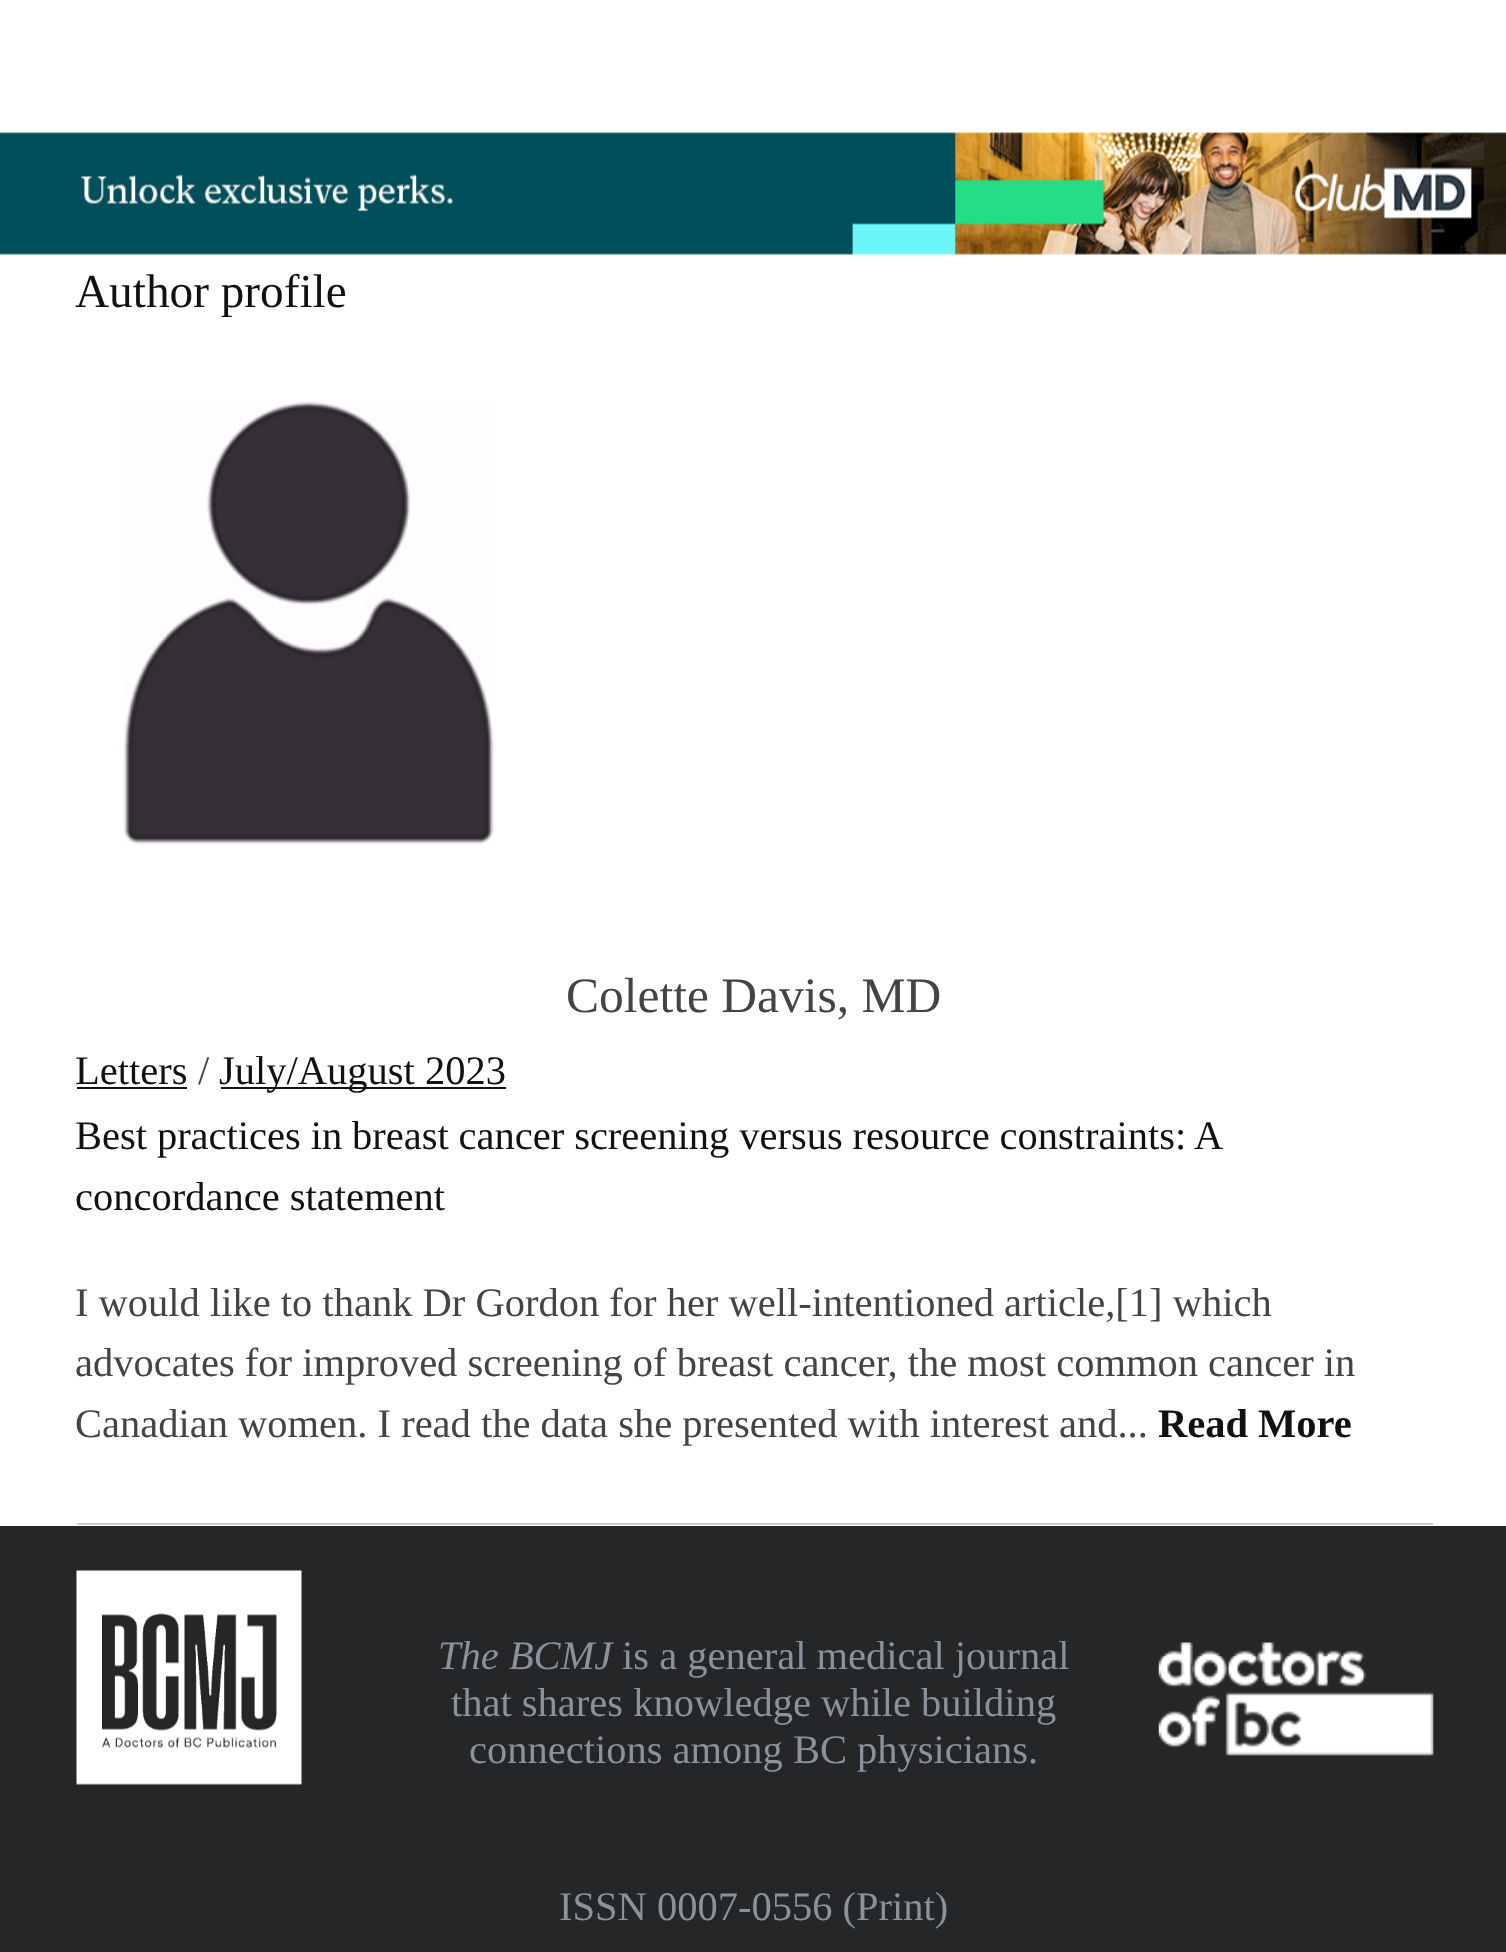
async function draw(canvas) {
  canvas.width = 1506
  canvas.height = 1952
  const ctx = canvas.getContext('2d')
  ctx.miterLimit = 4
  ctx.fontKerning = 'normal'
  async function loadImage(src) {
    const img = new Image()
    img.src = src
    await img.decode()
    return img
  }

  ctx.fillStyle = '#fff'
  ctx.fillRect(0, 0, 1506, 1952)
  ctx.drawImage(await loadImage('image0.png'), 0, 132, 1506, 123)
  ctx.font = '47.25px Liberation Serif'
  ctx.fillStyle = '#111'
  ctx.fillText('Author profile', 75, 307)
  ctx.drawImage(await loadImage('image1.png'), 123, 401, 371, 444)
  ctx.font = '49.5px Liberation Serif'
  ctx.fillStyle = '#444'
  ctx.fillText('Colette Davis, MD', 566, 1012)
  ctx.fillStyle = '#ccc'
  ctx.fillRect(77, 1523, 1356, 2)
  ctx.font = '40.5px Liberation Serif'
  ctx.fillStyle = '#111'
  ctx.fillText('Letters', 75, 1084)
  ctx.fillRect(77, 1087, 110, 2)
  ctx.fillStyle = '#444'
  ctx.fillText('/', 198, 1084)
  ctx.fillStyle = '#111'
  ctx.fillRect(221, 1087, 285, 2)
  ctx.fillText('July/August 2023', 219, 1084)
  ctx.wordSpacing = '-0.25px'
  ctx.fillText('Best practices in breast cancer screening versus resource constraints: A', 75, 1149)
  ctx.wordSpacing = '0px'
  ctx.fillText('concordance statement', 75, 1210)
  ctx.fillStyle = '#444'
  ctx.fillText('I would like to thank Dr Gordon for her well-intentioned article,[1] which', 75, 1316)
  ctx.fillText('advocates for improved screening of breast cancer, the most common cancer in', 75, 1376)
  ctx.fillText('Canadian women. I read the data she presented with interest and...', 75, 1437)
  ctx.font = 'bold 40.5px Liberation Serif'
  ctx.fillStyle = '#111'
  ctx.fillText('Read More', 1158, 1437)
  ctx.fillStyle = '#242628'
  ctx.fillRect(0, 1526, 1506, 426)
  ctx.drawImage(await loadImage('image2.png'), 76, 1570, 226, 215)
  ctx.font = 'italic 40.5px Liberation Serif'
  ctx.fillStyle = '#8c919b'
  ctx.fillText('The BCMJ', 438, 1669)
  ctx.font = '40.5px Liberation Serif'
  ctx.fillText('is a general medical journal', 622, 1669)
  ctx.fillText('that shares knowledge while building', 451, 1716)
  ctx.fillText('connections among BC physicians.', 469, 1763)
  ctx.drawImage(await loadImage('image3.png'), 1158, 1642, 276, 114)
  ctx.fillText('ISSN 0007‍-‍0556 (Print)', 559, 1920)
}

draw(document.querySelector('canvas'))
